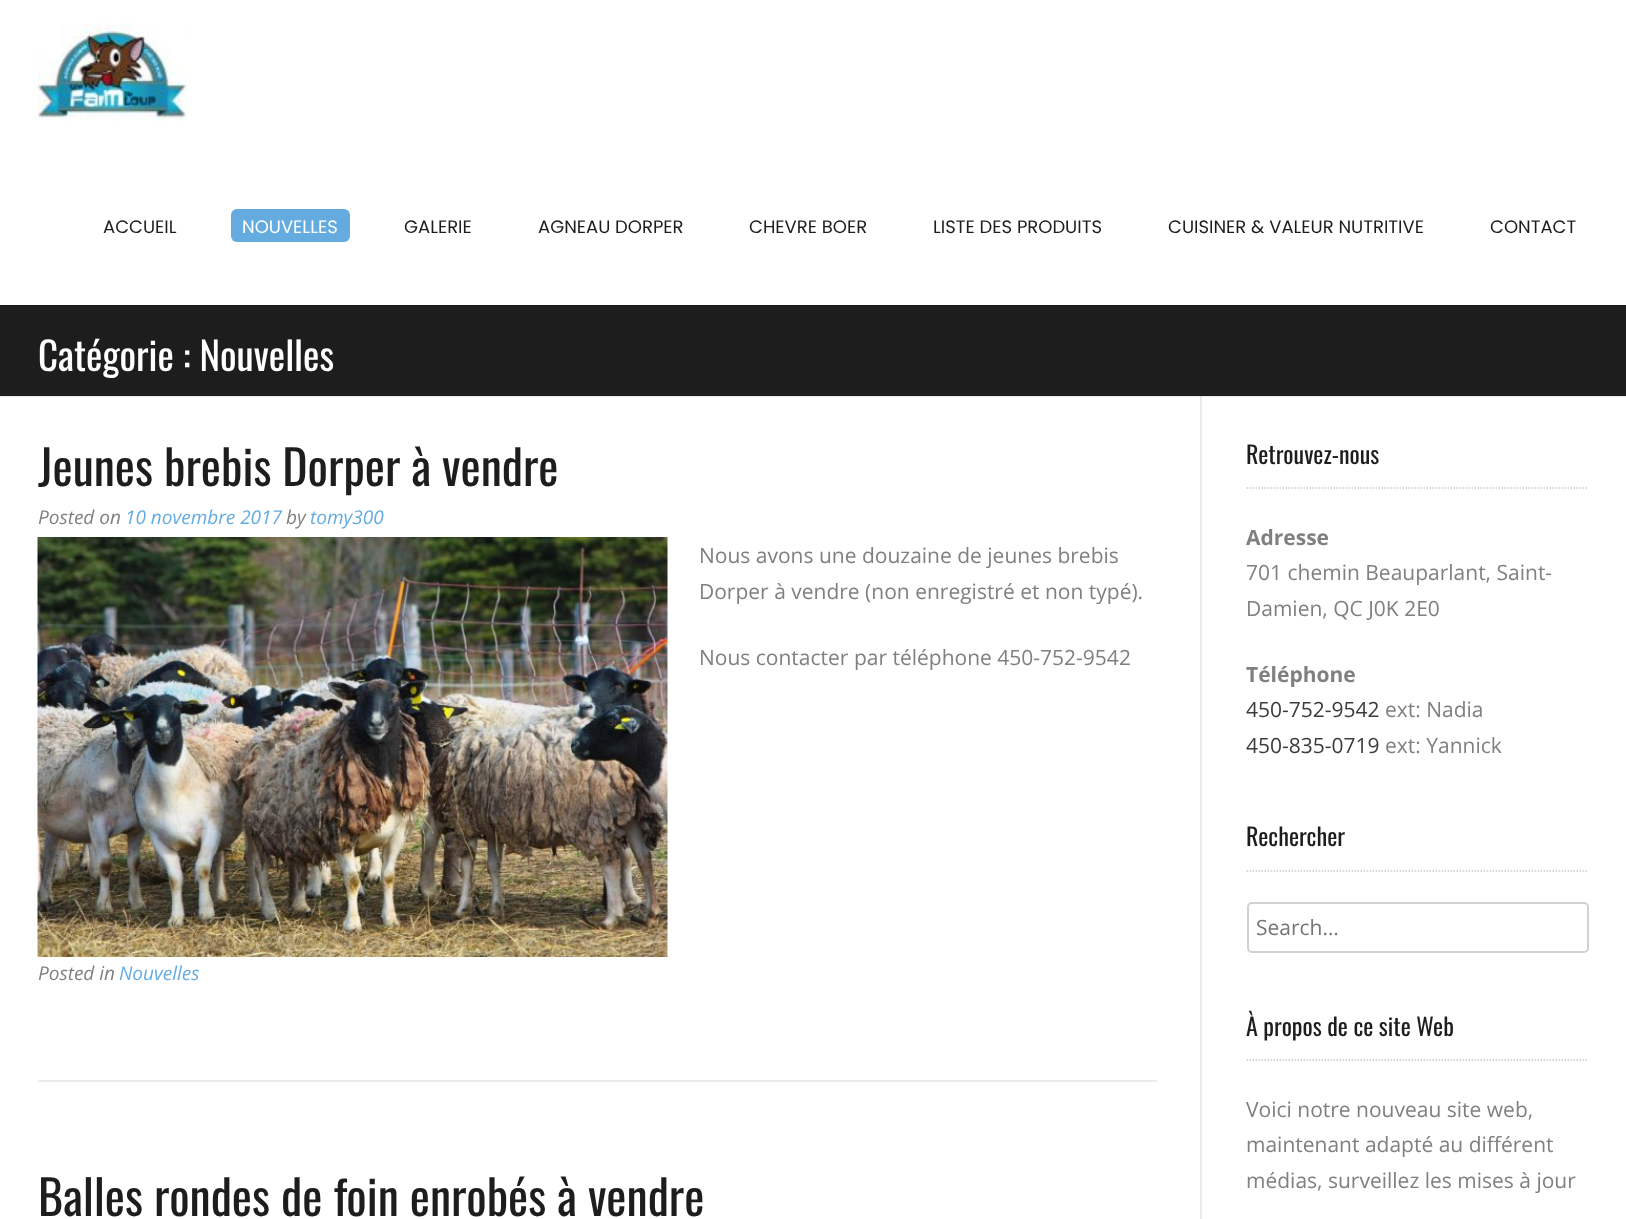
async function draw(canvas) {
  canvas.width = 1626
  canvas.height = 1219
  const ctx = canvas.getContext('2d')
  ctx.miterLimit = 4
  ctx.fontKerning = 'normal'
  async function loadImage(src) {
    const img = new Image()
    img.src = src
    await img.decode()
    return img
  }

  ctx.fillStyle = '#fff'
  ctx.fillRect(0, 0, 1626, 1219)
  ctx.fillStyle = '#f5f5f5'
  ctx.fillRect(1200, 396, 2, 823)
  ctx.fillStyle = '#ebebeb'
  ctx.fillRect(0, 396, 1626, 1)
  ctx.fillStyle = '#e2e2e2'
  ctx.fillRect(1200, 396, 2, 1)
  ctx.drawImage(await loadImage('image0.png'), 37, 23, 151, 98)
  ctx.font = '18px Poppins'
  ctx.fillStyle = '#1d1d1d'
  ctx.fillText('ACCUEIL', 103, 233)
  ctx.fillStyle = '#64ace0'
  ctx.beginPath()
  ctx.roundRect(231, 209, 119, 33, 6)
  ctx.fill()
  ctx.fillStyle = '#fff'
  ctx.fillText('NOUVELLES', 242, 233)
  ctx.fillStyle = '#1d1d1d'
  ctx.fillText('GALERIE', 404, 233)
  ctx.fillText('AGNEAU DORPER', 538, 233)
  ctx.fillText('CHEVRE BOER', 749, 233)
  ctx.fillText('LISTE DES PRODUITS', 933, 233)
  ctx.fillText('CUISINER & VALEUR NUTRITIVE', 1168, 233)
  ctx.fillText('CONTACT', 1490, 233)
  ctx.fillRect(0, 306, 1626, 89)
  ctx.fillStyle = '#1a1a1a'
  ctx.fillRect(0, 305, 1626, 1)
  ctx.fillStyle = '#1b1b1b'
  ctx.fillRect(0, 395, 1626, 1)
  ctx.font = '39px Oswald'
  ctx.fillStyle = '#fff'
  ctx.fillText('Catégorie : Nouvelles', 38, 371)
  ctx.fillStyle = '#ebebeb'
  ctx.fillRect(38, 1080, 1119, 2)
  ctx.font = '48px Oswald'
  ctx.fillStyle = '#1d1d1d'
  ctx.fillText('Jeunes brebis Dorper à vendre', 38, 486)
  ctx.font = 'italic 19px Open Sans'
  ctx.fillStyle = '#808080'
  ctx.fillText('Posted on', 38, 524)
  ctx.fillStyle = '#64ace0'
  ctx.fillText('10 novembre 2017', 125, 524)
  ctx.fillStyle = '#808080'
  ctx.fillText('by', 286, 524)
  ctx.fillStyle = '#64ace0'
  ctx.fillText('tomy300', 310, 524)
  ctx.drawImage(await loadImage('image1.png'), 37, 537, 631, 420)
  ctx.font = '21px Open Sans'
  ctx.fillStyle = '#808080'
  ctx.fillText('Nous avons une douzaine de jeunes brebis', 699, 563)
  ctx.fillText('Dorper à vendre (non enregistré et non typé).', 699, 599)
  ctx.fillText('Nous contacter par téléphone 450-752-9542', 699, 665)
  ctx.font = 'italic 19px Open Sans'
  ctx.fillText('Posted in', 38, 980)
  ctx.fillStyle = '#64ace0'
  ctx.fillText('Nouvelles', 119, 980)
  ctx.font = '48px Oswald'
  ctx.fillStyle = '#1d1d1d'
  ctx.fillText('Balles rondes de foin enrobés à vendre', 38, 1216)
  ctx.fillStyle = '#0000000a'
  ctx.beginPath()
  ctx.moveTo(1200, 396)
  ctx.lineTo(1200, 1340)
  ctx.lineTo(1587, 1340)
  ctx.lineTo(1202, 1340)
  ctx.lineTo(1202, 396)
  ctx.closePath()
  ctx.fill()
  ctx.beginPath()
  ctx.moveTo(1246.5, 488)
  ctx.lineTo(1588.5, 488)
  ctx.strokeStyle = '#ccc'
  ctx.lineWidth = 1.5
  ctx.setLineDash([1.5, 1.5])
  ctx.stroke()
  ctx.font = '24px Oswald'
  ctx.fillStyle = '#1d1d1d'
  ctx.fillText('Retrouvez-nous', 1246, 464)
  ctx.font = 'bold 21px Open Sans'
  ctx.fillStyle = '#808080'
  ctx.fillText('Adresse', 1246, 545)
  ctx.font = '21px Open Sans'
  ctx.fillText('701 chemin Beauparlant, Saint-', 1246, 580)
  ctx.fillText('Damien, QC J0K 2E0', 1246, 616)
  ctx.font = 'bold 21px Open Sans'
  ctx.fillText('Téléphone', 1246, 682)
  ctx.font = '21px Open Sans'
  ctx.fillStyle = '#3c3c3c'
  ctx.fillText('450-752-9542', 1246, 717)
  ctx.fillStyle = '#808080'
  ctx.fillText('ext: Nadia', 1385, 717)
  ctx.fillStyle = '#3c3c3c'
  ctx.fillText('450-835-0719', 1246, 753)
  ctx.fillStyle = '#808080'
  ctx.fillText('ext: Yannick', 1385, 753)
  ctx.beginPath()
  ctx.moveTo(1246.5, 871)
  ctx.lineTo(1588.5, 871)
  ctx.stroke()
  ctx.font = '24px Oswald'
  ctx.fillStyle = '#1d1d1d'
  ctx.fillText('Rechercher', 1246, 846)
  ctx.beginPath()
  ctx.roundRect(1248, 903, 340, 49, 4)
  ctx.strokeStyle = '#d1d1d1'
  ctx.lineWidth = 2
  ctx.setLineDash([])
  ctx.stroke()
  ctx.font = '21px Open Sans'
  ctx.fillStyle = '#757575'
  ctx.fillText('Search…', 1256, 935)
  ctx.beginPath()
  ctx.moveTo(1246.5, 1060)
  ctx.lineTo(1588.5, 1060)
  ctx.strokeStyle = '#ccc'
  ctx.lineWidth = 1.5
  ctx.setLineDash([1.5, 1.5])
  ctx.stroke()
  ctx.font = '24px Oswald'
  ctx.fillStyle = '#1d1d1d'
  ctx.fillText('À propos de ce site Web', 1246, 1036)
  ctx.font = '21px Open Sans'
  ctx.fillStyle = '#808080'
  ctx.fillText('Voici notre nouveau site web,', 1246, 1117)
  ctx.fillText('maintenant adapté au différent', 1246, 1152)
  ctx.fillText('médias, surveillez les mises à jour', 1246, 1188)
}

draw(document.querySelector('canvas'))
